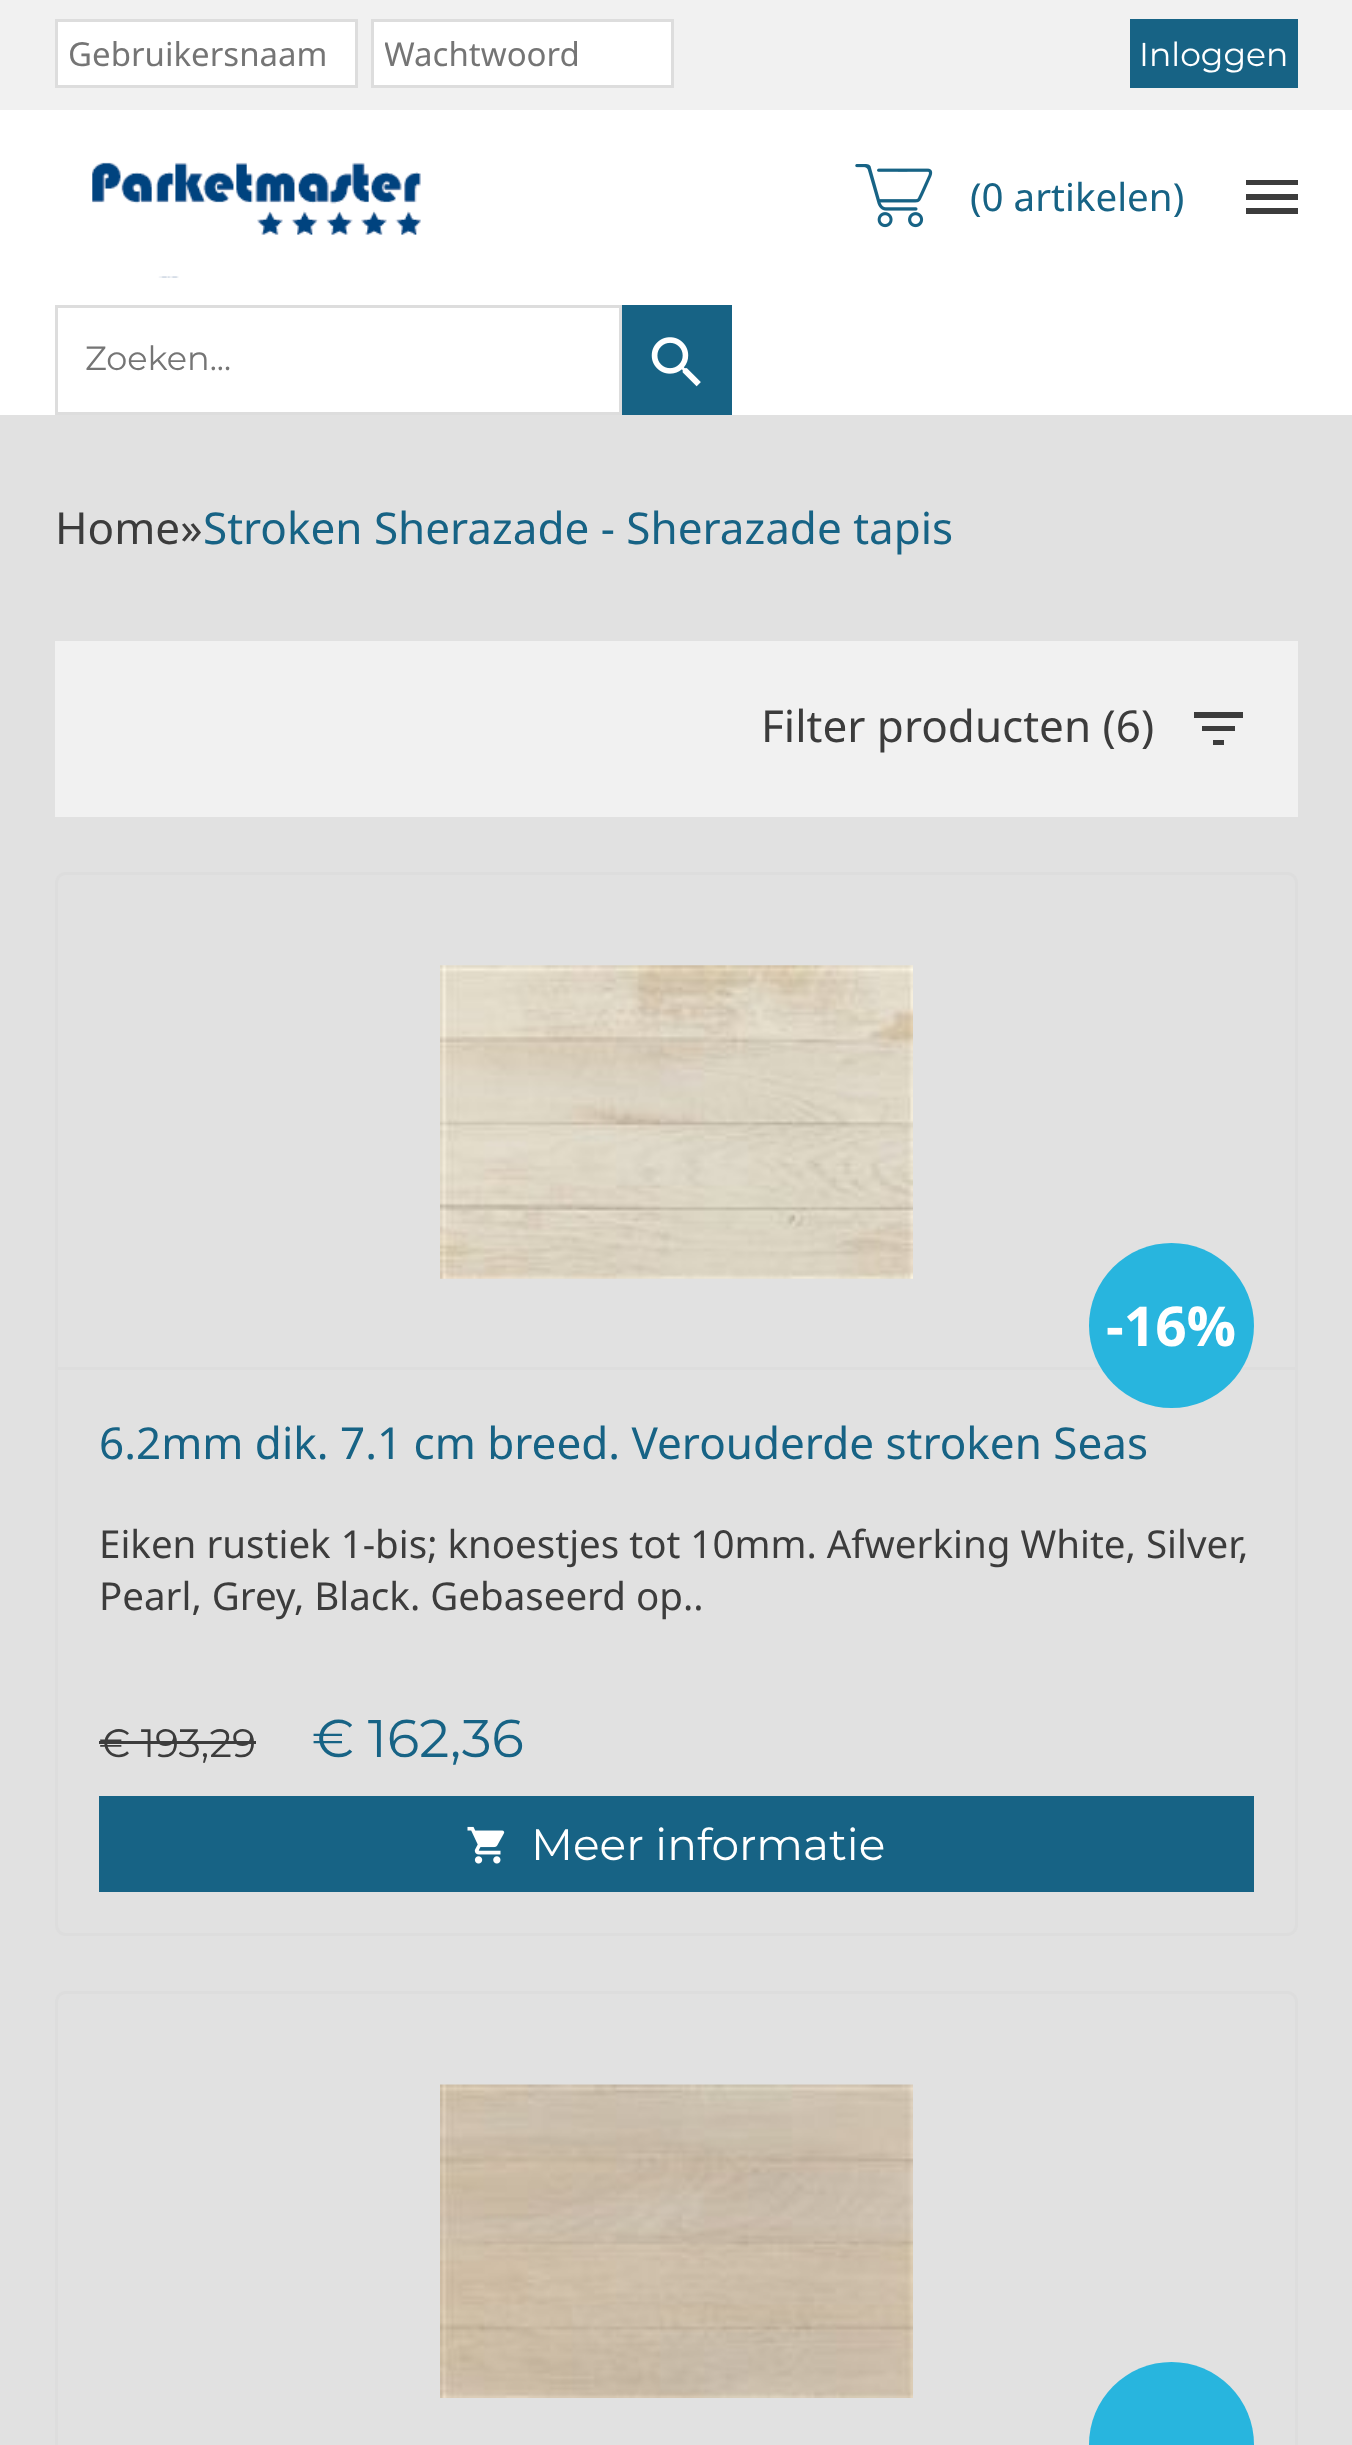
async function draw(canvas) {
  canvas.width = 1352
  canvas.height = 2445
  const ctx = canvas.getContext('2d')
  ctx.miterLimit = 4
  ctx.fontKerning = 'normal'
  async function loadImage(src) {
    const img = new Image()
    img.src = src
    await img.decode()
    return img
  }

  ctx.fillStyle = '#e1e1e1'
  ctx.fillRect(0, 0, 1352, 2445)
  ctx.fillStyle = '#fff'
  ctx.fillRect(0, 110, 1352, 305)
  ctx.fillStyle = '#f1f1f1'
  ctx.fillRect(0, 0, 1352, 110)
  ctx.fillStyle = '#fff'
  ctx.beginPath()
  ctx.rect(56.5, 20.5, 300, 66)
  ctx.fill()
  ctx.strokeStyle = '#ddd'
  ctx.lineWidth = 3
  ctx.stroke()
  ctx.font = '33px Noto Sans'
  ctx.fillStyle = '#757575'
  ctx.fillText('Gebruikersnaam', 68, 66)
  ctx.fillStyle = '#fff'
  ctx.beginPath()
  ctx.rect(372.5, 20.5, 300, 66)
  ctx.fill()
  ctx.stroke()
  ctx.save()
  ctx.beginPath()
  ctx.rect(385, 30, 275, 47)
  ctx.clip()
  ctx.fillStyle = '#757575'
  ctx.fillText('Wachtwoord', 384, 66)
  ctx.restore()
  ctx.fillStyle = '#176385'
  ctx.fillRect(1130, 19, 168, 69)
  ctx.font = '100 33px Montserrat'
  ctx.fillStyle = '#fff'
  ctx.fillText('Inloggen', 1139, 66)
  ctx.drawImage(await loadImage('image0.png'), 92, 162, 329, 116)
  ctx.drawImage(await loadImage('image1.png'), 855, 164, 78, 64)
  ctx.font = '38.5px Noto Sans'
  ctx.fillStyle = '#176385'
  ctx.fillText('(0 artikelen)', 970, 211)
  ctx.fillStyle = '#3c3c3c'
  ctx.beginPath()
  ctx.moveTo(1246, 214)
  ctx.lineTo(1246, 208)
  ctx.lineTo(1298, 208)
  ctx.lineTo(1298, 214)
  ctx.closePath()
  ctx.moveTo(1246, 200)
  ctx.lineTo(1246, 194)
  ctx.lineTo(1298, 194)
  ctx.lineTo(1298, 200)
  ctx.closePath()
  ctx.moveTo(1246, 180)
  ctx.lineTo(1298, 180)
  ctx.lineTo(1298, 185)
  ctx.lineTo(1246, 185)
  ctx.closePath()
  ctx.fill()
  ctx.strokeRect(56.5, 306.5, 564, 107)
  ctx.font = '100 33.5px Montserrat'
  ctx.fillStyle = '#757575'
  ctx.fillText('Zoeken...', 85, 370)
  ctx.fillStyle = '#176385'
  ctx.fillRect(622, 305, 110, 110)
  ctx.drawImage(await loadImage('image2.png'), 651, 337, 50, 50)
  ctx.font = '44px Noto Sans'
  ctx.fillStyle = '#3c3c3c'
  ctx.fillText('Home»', 55, 544)
  ctx.fillStyle = '#176385'
  ctx.fillText('Stroken Sherazade - Sherazade tapis', 203, 544)
  ctx.fillStyle = '#f1f1f1'
  ctx.fillRect(55, 641, 1243, 176)
  ctx.fillStyle = '#3c3c3c'
  ctx.fillText('Filter producten (6)', 761, 742)
  ctx.beginPath()
  ctx.moveTo(1213, 745)
  ctx.lineTo(1213, 740)
  ctx.lineTo(1224, 740)
  ctx.lineTo(1224, 745)
  ctx.closePath()
  ctx.moveTo(1194, 712)
  ctx.lineTo(1243, 712)
  ctx.lineTo(1243, 718)
  ctx.lineTo(1194, 718)
  ctx.closePath()
  ctx.moveTo(1202, 731)
  ctx.lineTo(1202, 726)
  ctx.lineTo(1235, 726)
  ctx.lineTo(1235, 731)
  ctx.closePath()
  ctx.fill()
  ctx.beginPath()
  ctx.roundRect(56.5, 873.5, 1240, 1061, 9.5)
  ctx.stroke()
  ctx.fillStyle = '#ddd'
  ctx.fillRect(58, 1367, 1237, 3)
  ctx.drawImage(await loadImage('image3.png'), 440, 965, 473, 314)
  ctx.fillStyle = '#28b5de'
  ctx.beginPath()
  ctx.arc(1171.5, 1325.5, 82.5, 0, 2 * Math.PI)
  ctx.fill()
  ctx.font = 'bold 55px Open Sans'
  ctx.fillStyle = '#fff'
  ctx.fillText('-16%', 1106, 1346)
  ctx.font = '44px Noto Sans'
  ctx.fillStyle = '#176385'
  ctx.fillText('6.2mm dik. 7.1 cm breed. Verouderde stroken Seas', 99, 1459)
  ctx.font = '38.5px Noto Sans'
  ctx.fillStyle = '#3c3c3c'
  ctx.fillText('Eiken rustiek 1-bis; knoestjes tot 10mm. Afwerking White, Silver,', 99, 1558)
  ctx.fillText('Pearl, Grey, Black. Gebaseerd op..', 99, 1610)
  ctx.font = '100 39.5px Montserrat'
  ctx.fillText('€ 193,29', 99, 1757)
  ctx.fillRect(99, 1741, 157, 3)
  ctx.font = '100 53px Montserrat'
  ctx.fillStyle = '#176385'
  ctx.fillText('€ 162,36', 312, 1757)
  ctx.fillRect(99, 1796, 1155, 96)
  ctx.drawImage(await loadImage('image4.png'), 467, 1826, 38, 38)
  ctx.font = '100 44px Montserrat'
  ctx.fillStyle = '#fff'
  ctx.fillText('Meer informatie', 531, 1860)
  ctx.beginPath()
  ctx.roundRect(56.5, 1992.5, 1240, 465, 9.5)
  ctx.stroke()
  ctx.drawImage(await loadImage('image5.png'), 440, 2084, 473, 314)
  ctx.fillStyle = '#28b5de'
  ctx.beginPath()
  ctx.arc(1171.5, 2444.5, 82.5, 0, 2 * Math.PI)
  ctx.fill()
}

draw(document.querySelector('canvas'))
